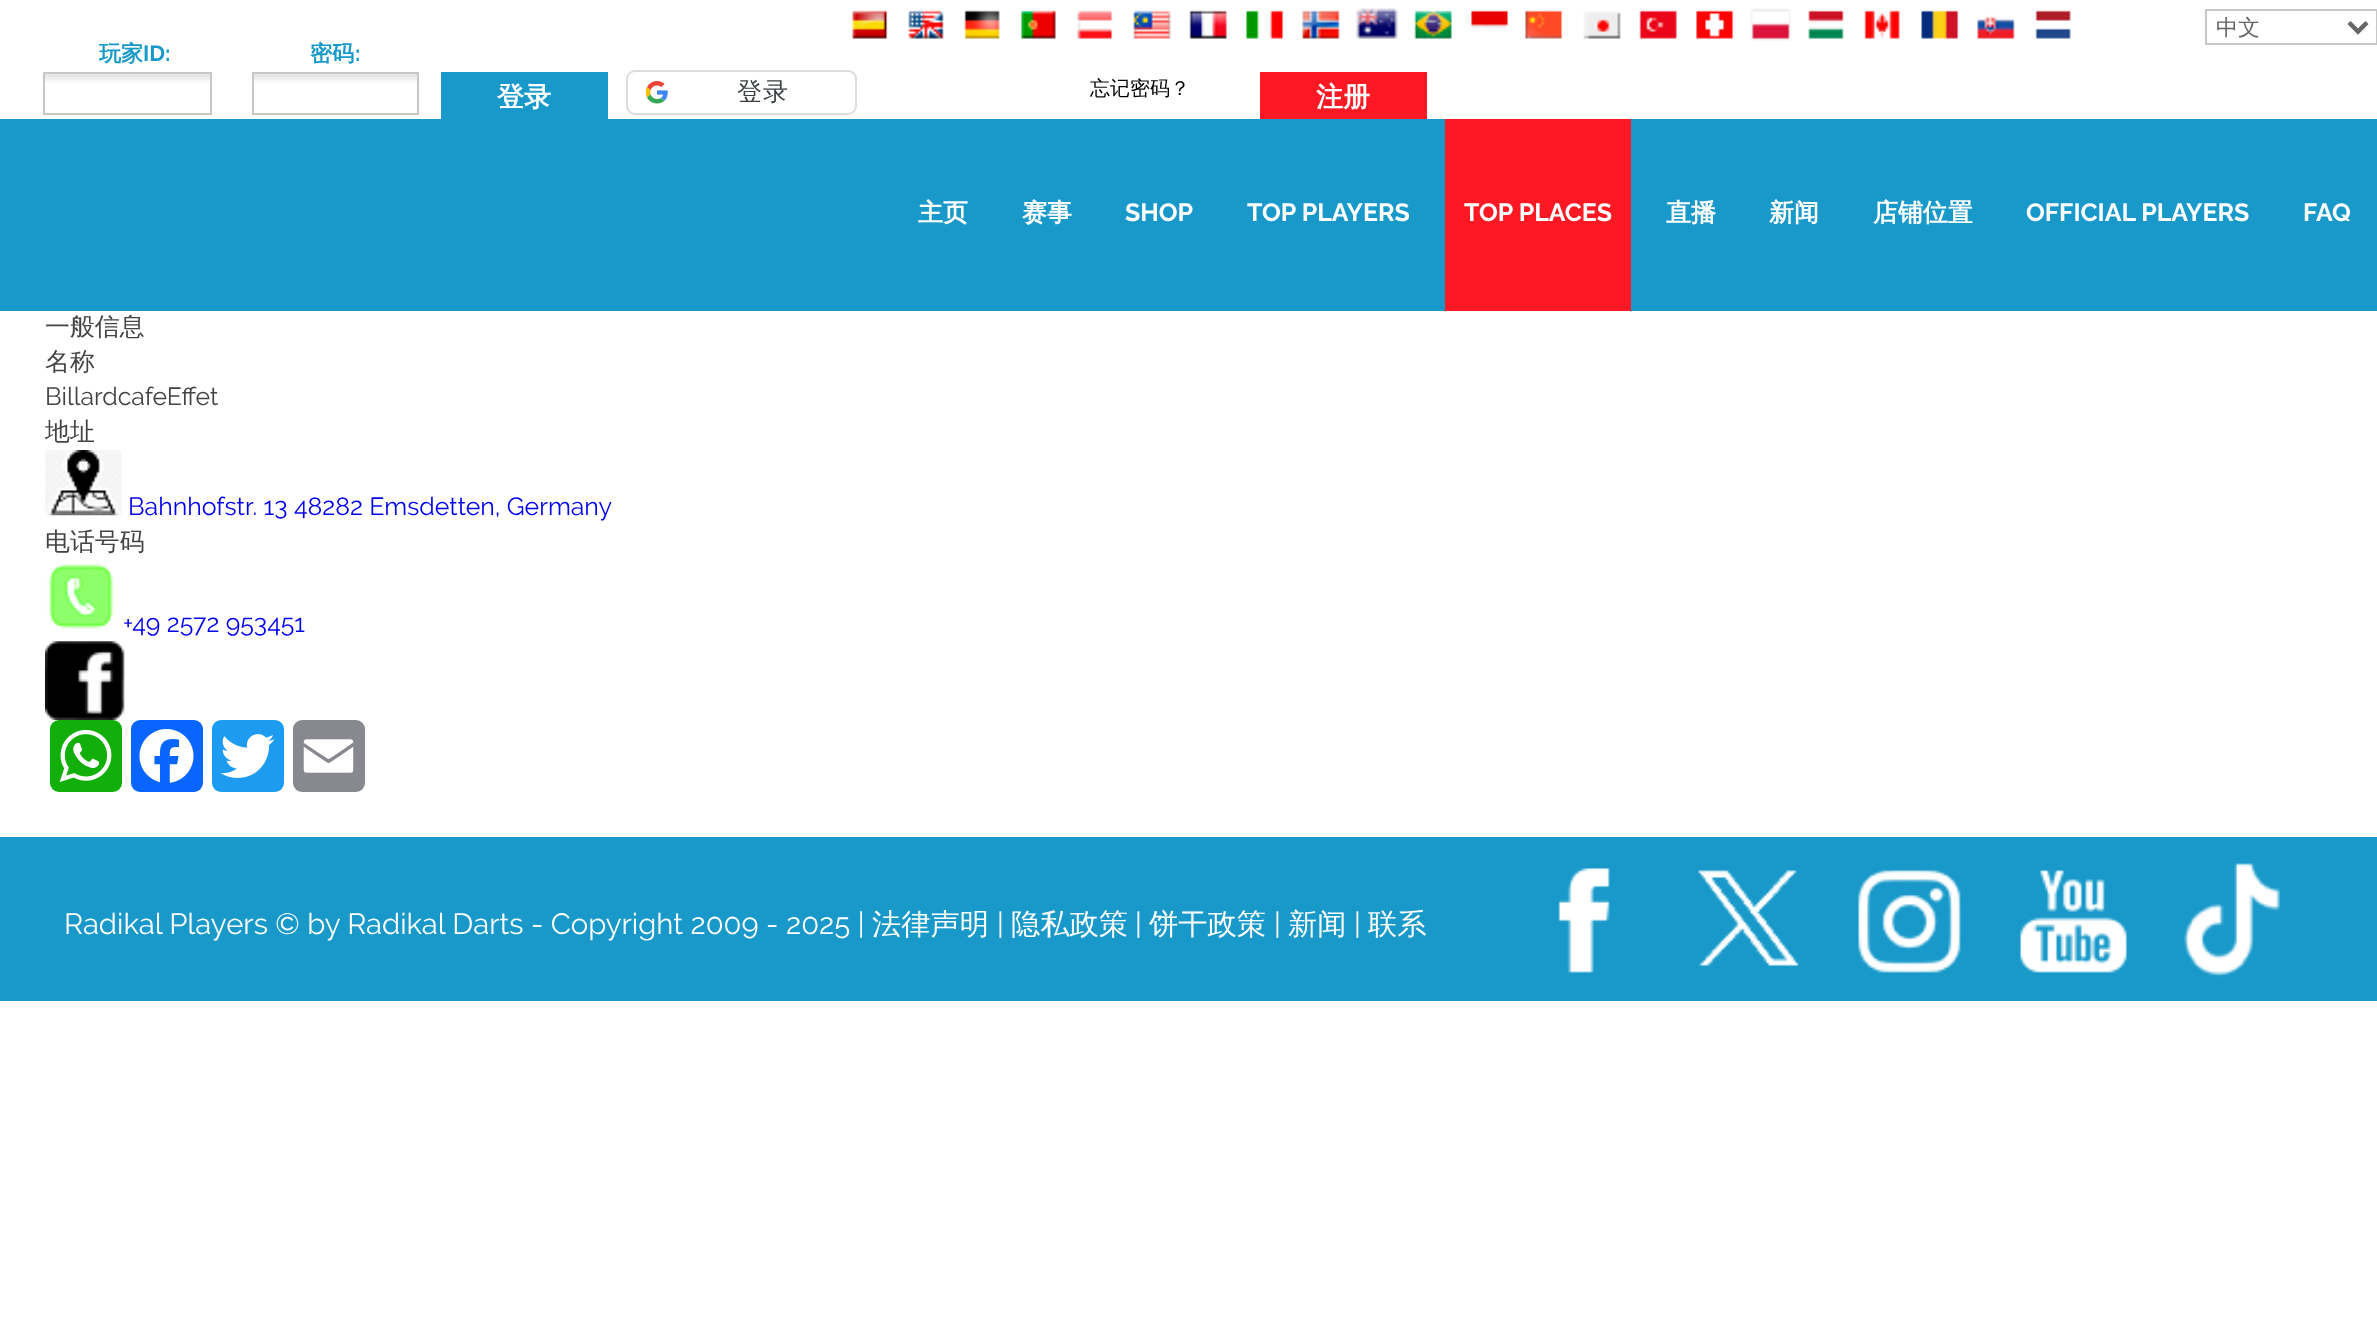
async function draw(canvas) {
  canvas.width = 2377
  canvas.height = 1340
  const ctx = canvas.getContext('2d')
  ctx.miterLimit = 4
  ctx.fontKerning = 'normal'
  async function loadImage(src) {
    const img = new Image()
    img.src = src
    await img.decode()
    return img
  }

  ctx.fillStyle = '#fff'
  ctx.fillRect(0, 0, 2377, 1340)
  ctx.fillStyle = '#1899c9'
  ctx.fillRect(0, 119, 2377, 192)
  ctx.drawImage(await loadImage('image0.png'), 852, 10, 36, 29)
  ctx.drawImage(await loadImage('image1.png'), 908, 10, 36, 29)
  ctx.drawImage(await loadImage('image2.png'), 964, 10, 36, 29)
  ctx.drawImage(await loadImage('image3.png'), 1021, 10, 35, 29)
  ctx.drawImage(await loadImage('image4.png'), 1077, 10, 36, 29)
  ctx.drawImage(await loadImage('image5.png'), 1133, 10, 38, 29)
  ctx.drawImage(await loadImage('image6.png'), 1189, 10, 38, 29)
  ctx.drawImage(await loadImage('image7.png'), 1246, 10, 38, 29)
  ctx.drawImage(await loadImage('image8.png'), 1302, 10, 38, 29)
  ctx.drawImage(await loadImage('image9.png'), 1356, 8, 42, 31)
  ctx.drawImage(await loadImage('image10.png'), 1414, 10, 38, 29)
  ctx.drawImage(await loadImage('image11.png'), 1471, 10, 38, 18)
  ctx.drawImage(await loadImage('image12.png'), 1525, 10, 38, 29)
  ctx.drawImage(await loadImage('image13.png'), 1583, 11, 38, 28)
  ctx.drawImage(await loadImage('image14.png'), 1639, 10, 38, 29)
  ctx.drawImage(await loadImage('image15.png'), 1696, 10, 38, 29)
  ctx.drawImage(await loadImage('image16.png'), 1750, 8, 41, 33)
  ctx.drawImage(await loadImage('image17.png'), 1808, 10, 36, 29)
  ctx.drawImage(await loadImage('image18.png'), 1864, 10, 36, 29)
  ctx.drawImage(await loadImage('image19.png'), 1921, 10, 38, 29)
  ctx.drawImage(await loadImage('image20.png'), 1977, 15, 38, 24)
  ctx.drawImage(await loadImage('image21.png'), 2035, 10, 36, 29)
  ctx.strokeStyle = '#c7c7c7'
  ctx.lineWidth = 2
  ctx.strokeRect(2206, 10, 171, 34)
  ctx.beginPath()
  ctx.moveTo(2349, 22.5)
  ctx.lineTo(2358, 31.5)
  ctx.lineTo(2367, 22.5)
  ctx.strokeStyle = '#666'
  ctx.lineWidth = 4.5
  ctx.stroke()
  ctx.font = '500 22px WenQuanYi Zen Hei'
  ctx.fillStyle = '#666'
  ctx.fillText('中文', 2216, 35)
  ctx.font = 'bold 22px WenQuanYi Zen Hei'
  ctx.fillStyle = '#1899c9'
  ctx.fillText('玩家', 99, 61)
  ctx.font = 'bold 22px Raleway'
  ctx.fillText('ID:', 143, 61)
  ctx.drawImage(await loadImage('image22.png'), 42, 74, 168, 9)
  ctx.strokeStyle = '#c7c7c7'
  ctx.lineWidth = 2
  ctx.strokeRect(44, 73, 167, 41)
  ctx.font = 'bold 22px WenQuanYi Zen Hei'
  ctx.fillText('密码', 310, 61)
  ctx.font = 'bold 22px Raleway'
  ctx.fillText(':', 355, 61)
  ctx.drawImage(await loadImage('image23.png'), 254, 74, 163, 9)
  ctx.strokeRect(253, 73, 165, 41)
  ctx.fillRect(441, 72, 167, 47)
  ctx.font = 'bold 27px WenQuanYi Zen Hei'
  ctx.fillStyle = '#fff'
  ctx.fillText('登录', 497, 106)
  ctx.beginPath()
  ctx.roundRect(627, 71, 229, 43, 8)
  ctx.strokeStyle = '#dadce0'
  ctx.stroke()
  ctx.drawImage(await loadImage('image24.png'), 646, 81, 22, 23)
  ctx.letterSpacing = '1px'
  ctx.font = '500 25px WenQuanYi Zen Hei'
  ctx.fillStyle = '#3c4043'
  ctx.fillText('登录', 737, 100)
  ctx.letterSpacing = '0px'
  ctx.font = '500 20px WenQuanYi Zen Hei'
  ctx.fillStyle = '#000'
  ctx.fillText('忘记密码？', 1090, 95)
  ctx.fillStyle = '#fd1923'
  ctx.fillRect(1260, 72, 167, 47)
  ctx.font = 'bold 27px WenQuanYi Zen Hei'
  ctx.fillStyle = '#fff'
  ctx.fillText('注册', 1316, 106)
  ctx.font = 'bold 24.9px WenQuanYi Zen Hei'
  ctx.fillText('主页', 918, 221)
  ctx.fillText('赛事', 1022, 221)
  ctx.font = 'bold 24.9px Raleway'
  ctx.fillText('SHOP', 1125, 221)
  ctx.fillText('TOP PLAYERS', 1247, 221)
  ctx.fillStyle = '#fd1923'
  ctx.fillRect(1445, 119, 186, 192)
  ctx.fillStyle = '#fff'
  ctx.fillText('TOP PLACES', 1464, 221)
  ctx.font = 'bold 24.9px WenQuanYi Zen Hei'
  ctx.fillText('直播', 1666, 221)
  ctx.fillText('新闻', 1769, 221)
  ctx.fillText('店铺位置', 1873, 221)
  ctx.font = 'bold 24.9px Raleway'
  ctx.fillText('OFFICIAL PLAYERS', 2026, 221)
  ctx.fillText('FAQ', 2303, 221)
  ctx.font = '500 24.9px WenQuanYi Zen Hei'
  ctx.fillStyle = '#444'
  ctx.fillText('一般信息', 45, 335)
  ctx.fillText('名称', 45, 370)
  ctx.font = '24.9px Raleway'
  ctx.fillText('BillardcafeEffet', 45, 405)
  ctx.font = '500 24.9px WenQuanYi Zen Hei'
  ctx.fillText('地址', 45, 440)
  ctx.drawImage(await loadImage('image25.png'), 45, 450, 77, 66)
  ctx.font = '24.9px Raleway'
  ctx.fillStyle = '#00e'
  ctx.fillText('Bahnhofstr. 13 48282 Emsdetten, Germany', 128, 515)
  ctx.font = '500 24.9px WenQuanYi Zen Hei'
  ctx.fillStyle = '#444'
  ctx.fillText('电话号码', 45, 550)
  ctx.drawImage(await loadImage('image26.png'), 45, 564, 72, 65)
  ctx.font = '24.9px Raleway'
  ctx.fillStyle = '#00e'
  ctx.fillText('+49 2572 953451', 123, 632)
  ctx.drawImage(await loadImage('image27.png'), 45, 641, 80, 79)
  ctx.fillStyle = '#12af0a'
  ctx.beginPath()
  ctx.roundRect(50, 720, 72, 72, 9)
  ctx.fill()
  ctx.drawImage(await loadImage('image28.png'), 59, 729, 53, 53)
  ctx.fillStyle = '#0866ff'
  ctx.beginPath()
  ctx.roundRect(131, 720, 72, 72, 9)
  ctx.fill()
  ctx.drawImage(await loadImage('image29.png'), 139, 729, 55, 54)
  ctx.fillStyle = '#1d9bf0'
  ctx.beginPath()
  ctx.roundRect(212, 720, 72, 72, 9)
  ctx.fill()
  ctx.drawImage(await loadImage('image30.png'), 220, 734, 55, 44)
  ctx.fillStyle = '#888990'
  ctx.beginPath()
  ctx.roundRect(293, 720, 72, 72, 9)
  ctx.fill()
  ctx.drawImage(await loadImage('image31.png'), 303, 739, 51, 34)
  ctx.fillStyle = '#1899c9'
  ctx.fillRect(0, 837, 2377, 164)
  ctx.font = '29.25px Raleway'
  ctx.fillStyle = '#fff'
  ctx.fillText('Radikal Players © by Radikal Darts - Copyright 2009 - 2025 |', 64, 934)
  ctx.font = '500 29.25px WenQuanYi Zen Hei'
  ctx.fillText('法律声明', 872, 934)
  ctx.font = '29.25px Raleway'
  ctx.fillText('|', 997, 934)
  ctx.font = '500 29.25px WenQuanYi Zen Hei'
  ctx.fillText('隐私政策', 1011, 934)
  ctx.font = '29.25px Raleway'
  ctx.fillText('|', 1135, 934)
  ctx.font = '500 29.25px WenQuanYi Zen Hei'
  ctx.fillText('饼干政策', 1149, 934)
  ctx.font = '29.25px Raleway'
  ctx.fillText('|', 1274, 934)
  ctx.font = '500 29.25px WenQuanYi Zen Hei'
  ctx.fillText('新闻', 1288, 934)
  ctx.font = '29.25px Raleway'
  ctx.fillText('|', 1354, 934)
  ctx.font = '500 29.25px WenQuanYi Zen Hei'
  ctx.fillText('联系', 1368, 934)
  ctx.drawImage(await loadImage('image32.png'), 1558, 868, 52, 105)
  ctx.drawImage(await loadImage('image33.png'), 1697, 870, 102, 97)
  ctx.drawImage(await loadImage('image34.png'), 1858, 870, 103, 103)
  ctx.drawImage(await loadImage('image35.png'), 2020, 870, 107, 103)
  ctx.drawImage(await loadImage('image36.png'), 2184, 863, 96, 114)
}

draw(document.querySelector('canvas'))
